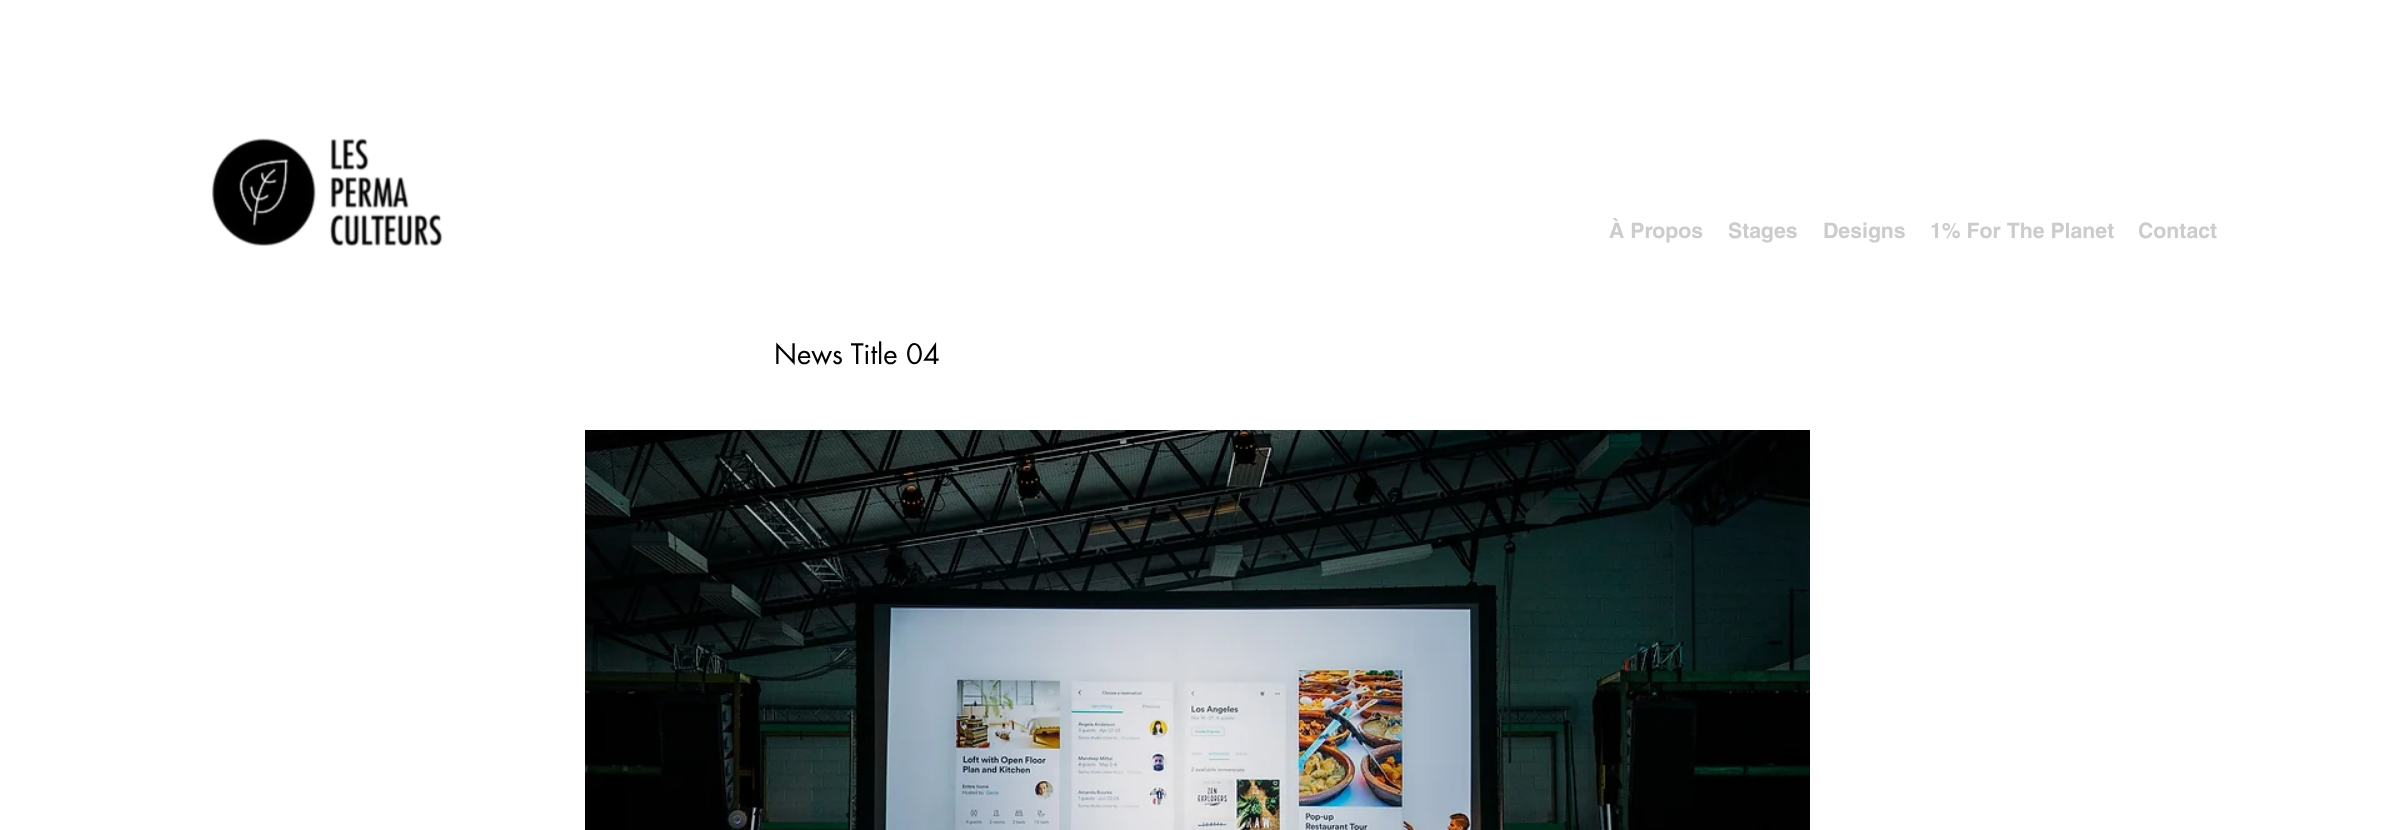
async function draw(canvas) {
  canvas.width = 2394
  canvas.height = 830
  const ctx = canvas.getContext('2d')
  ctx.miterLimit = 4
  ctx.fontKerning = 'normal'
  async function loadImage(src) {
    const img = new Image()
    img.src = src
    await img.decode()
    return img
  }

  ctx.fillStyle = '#fff'
  ctx.fillRect(0, 0, 2394, 830)
  ctx.drawImage(await loadImage('image0.png'), 212, 138, 231, 109)
  ctx.font = 'bold 21.25px helvetica'
  ctx.fillStyle = '#ccc'
  ctx.fillText('À Propos', 1609, 238)
  ctx.fillText('Stages', 1728, 238)
  ctx.fillText('Designs', 1823, 238)
  ctx.fillText('1% For The Planet', 1930, 238)
  ctx.fillText('Contact', 2138, 238)
  ctx.font = '27.5px futura'
  ctx.fillStyle = '#000'
  ctx.fillText('News Title 04', 774, 364)
  ctx.drawImage(await loadImage('image1.png'), 585, 430, 1225, 400)
}

draw(document.querySelector('canvas'))
